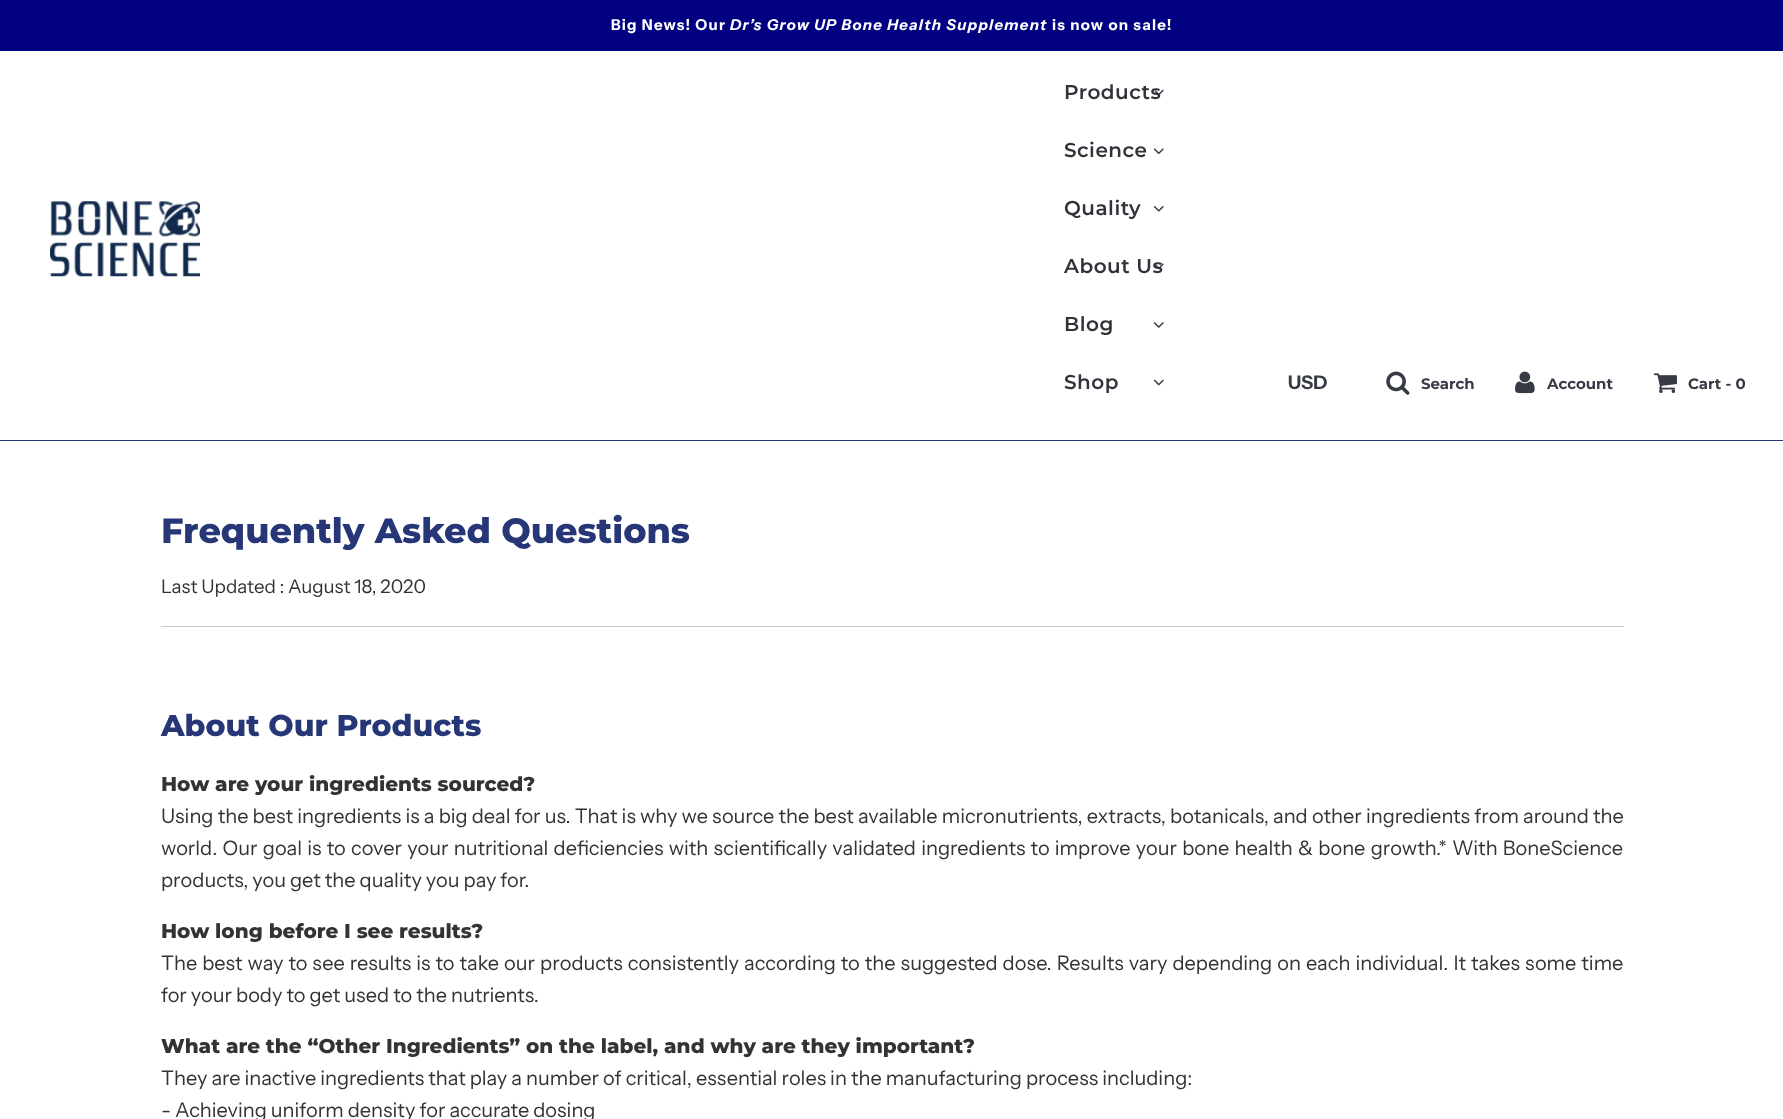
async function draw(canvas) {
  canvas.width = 1783
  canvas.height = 1119
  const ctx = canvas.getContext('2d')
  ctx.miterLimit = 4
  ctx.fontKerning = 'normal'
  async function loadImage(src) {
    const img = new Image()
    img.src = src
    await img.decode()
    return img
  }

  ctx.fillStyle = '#fff'
  ctx.fillRect(0, 0, 1783, 1119)
  ctx.fillStyle = '#000080'
  ctx.fillRect(0, 0, 1783, 51)
  ctx.letterSpacing = '1.25px'
  ctx.font = 'bold 15px Instrument Sans'
  ctx.fillStyle = '#fff'
  ctx.fillText('Big News! Our', 611, 30)
  ctx.font = 'italic bold 15px Instrument Sans'
  ctx.fillText('Dr’s Grow UP Bone Health Supplement', 730, 30)
  ctx.font = 'bold 15px Instrument Sans'
  ctx.fillText('is now on sale!', 1052, 30)
  ctx.drawImage(await loadImage('image0.png'), 50, 201, 150, 76)
  ctx.letterSpacing = '0.5px'
  ctx.font = '600 20px Montserrat'
  ctx.fillStyle = '#303339'
  ctx.fillText('Products', 1064, 99)
  ctx.drawImage(await loadImage('image1.png'), 1155, 89, 9, 7)
  ctx.fillText('Science', 1064, 157)
  ctx.drawImage(await loadImage('image2.png'), 1153, 148, 11, 6)
  ctx.fillText('Quality', 1064, 215)
  ctx.drawImage(await loadImage('image3.png'), 1153, 206, 11, 6)
  ctx.fillText('About Us', 1064, 273)
  ctx.drawImage(await loadImage('image4.png'), 1153, 263, 11, 6)
  ctx.fillText('Blog', 1064, 331)
  ctx.drawImage(await loadImage('image5.png'), 1153, 322, 11, 6)
  ctx.fillText('Shop', 1064, 389)
  ctx.drawImage(await loadImage('image6.png'), 1153, 379, 11, 7)
  ctx.letterSpacing = '0px'
  ctx.font = 'bold 18.75px Instrument Sans'
  ctx.fillStyle = '#363a44'
  ctx.fillText('USD', 1288, 389)
  ctx.drawImage(await loadImage('image7.png'), 1386, 371, 24, 24)
  ctx.font = 'bold 15px Montserrat'
  ctx.fillText('Search', 1421, 389)
  ctx.drawImage(await loadImage('image8.png'), 1515, 371, 20, 23)
  ctx.fillText('Account', 1547, 389)
  ctx.drawImage(await loadImage('image9.png'), 1653, 373, 24, 20)
  ctx.fillText('Cart - 0', 1688, 389)
  ctx.fillStyle = '#263677'
  ctx.fillRect(0, 440, 1783, 1)
  ctx.font = '800 35px Montserrat'
  ctx.fillText('Frequently Asked Questions', 161, 543)
  ctx.font = '18.75px Instrument Sans'
  ctx.fillStyle = '#333'
  ctx.fillText('Last Updated : August 18, 2020', 161, 593)
  ctx.fillStyle = '#cccbcb'
  ctx.fillRect(161, 626, 1463, 1)
  ctx.font = '800 30px Montserrat'
  ctx.fillStyle = '#263677'
  ctx.fillText('About Our Products', 161, 736)
  ctx.font = '800 20px Montserrat'
  ctx.fillStyle = '#333'
  ctx.fillText('How are your ingredients sourced?', 161, 791)
  ctx.wordSpacing = '0.15px'
  ctx.font = '20px Instrument Sans'
  ctx.fillText('Using the best ingredients is a big deal for us. That is why we source the best available micronutrients, extracts, botanicals, and other ingredients from around the', 161, 823)
  ctx.wordSpacing = '1.25px'
  ctx.fillText('world. Our goal is to cover your nutritional deficiencies with scientifically validated ingredients to improve your bone health & bone growth.* With BoneScience', 161, 855)
  ctx.wordSpacing = '0px'
  ctx.fillText('products, you get the quality you pay for.', 161, 887)
  ctx.font = '800 20px Montserrat'
  ctx.fillText('How long before I see results?', 161, 938)
  ctx.wordSpacing = '1px'
  ctx.font = '20px Instrument Sans'
  ctx.fillText('The best way to see results is to take our products consistently according to the suggested dose. Results vary depending on each individual. It takes some time', 161, 970)
  ctx.wordSpacing = '0px'
  ctx.fillText('for your body to get used to the nutrients.', 161, 1002)
  ctx.font = '800 20px Montserrat'
  ctx.fillText('What are the “Other Ingredients” on the label, and why are they important?', 161, 1053)
  ctx.font = '20px Instrument Sans'
  ctx.fillText('They are inactive ingredients that play a number of critical, essential roles in the manufacturing process including:', 161, 1085)
  ctx.fillText('- Achieving uniform density for accurate dosing', 161, 1117)
}

draw(document.querySelector('canvas'))
